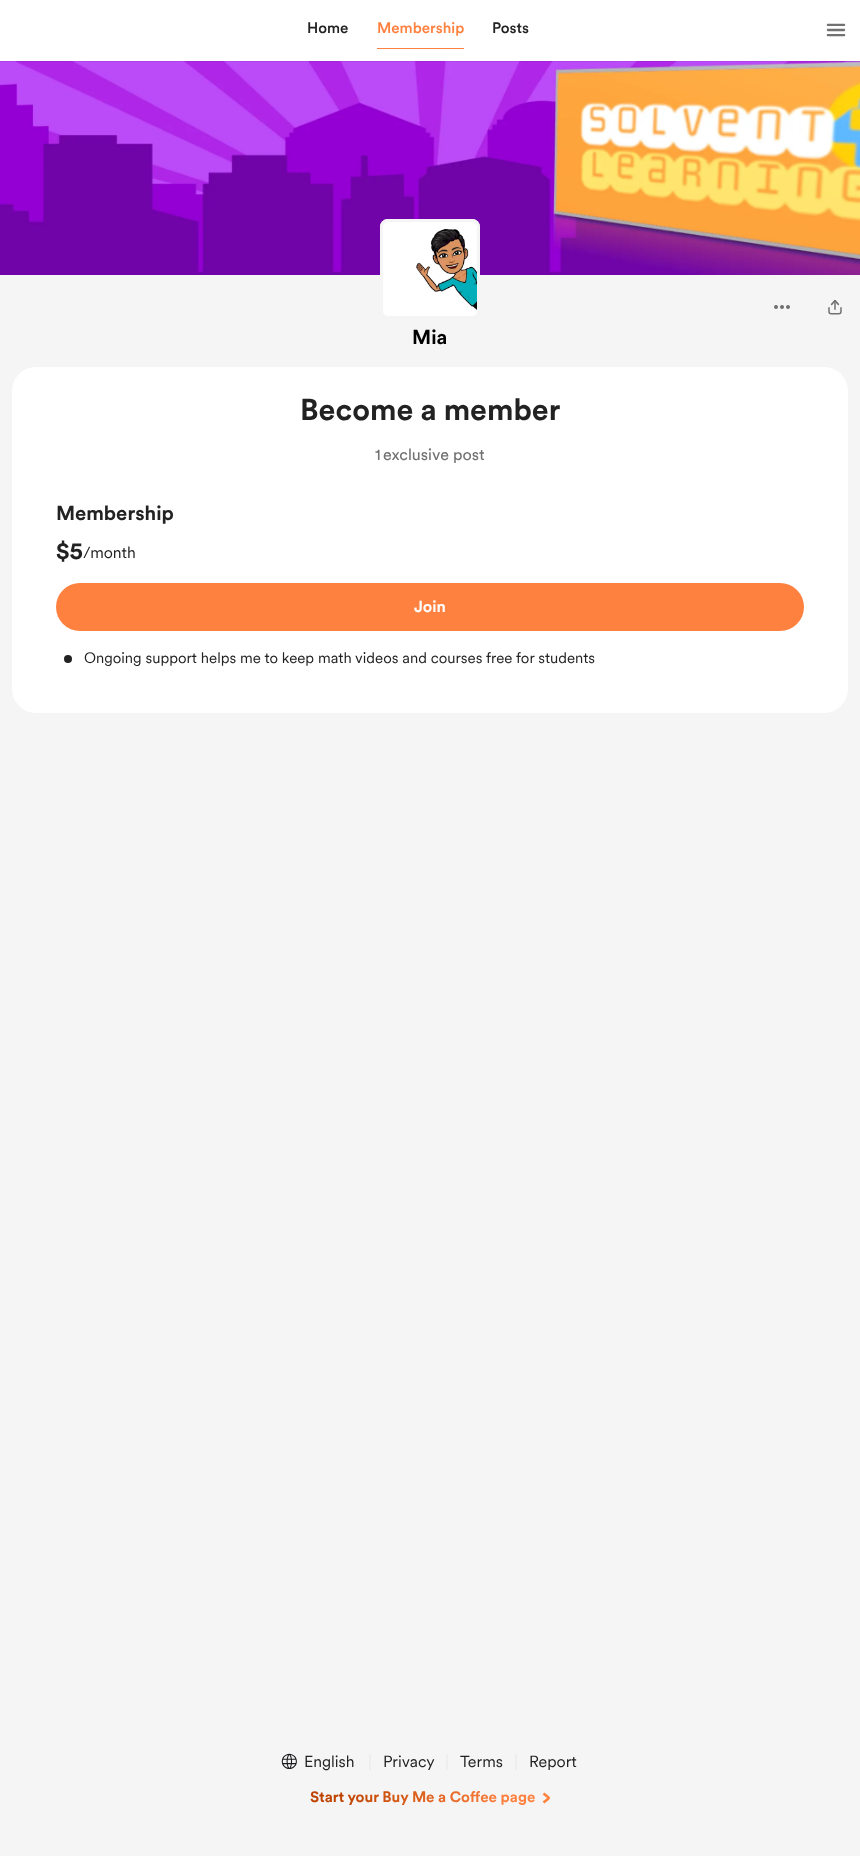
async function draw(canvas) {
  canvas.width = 860
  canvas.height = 1870
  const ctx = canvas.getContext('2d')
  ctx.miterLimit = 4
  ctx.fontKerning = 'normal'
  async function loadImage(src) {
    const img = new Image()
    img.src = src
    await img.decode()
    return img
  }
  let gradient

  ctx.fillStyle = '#fff'
  ctx.fillRect(0, 0, 860, 1870)
  ctx.drawImage(await loadImage('image1.png'), 0, 61, 860, 214)
  ctx.save()
  ctx.beginPath()
  ctx.rect(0, 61, 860, 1)
  ctx.clip()
  ctx.fillStyle = '#0000000f'
  ctx.filter = 'blur(0.5px)'
  ctx.beginPath()
  ctx.rect(0, 1, 860, 61)
  ctx.fill()
  ctx.filter = 'none'
  ctx.restore()
  ctx.font = '500 15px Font'
  ctx.fillStyle = '#222'
  ctx.fillText('Home', 307, 33)
  ctx.fillStyle = '#ff813f'
  ctx.fillText('Membership', 377, 33)
  ctx.fillRect(377, 48, 87, 1)
  ctx.fillStyle = '#222'
  ctx.fillText('Posts', 492, 33)
  ctx.drawImage(await loadImage('image0.png'), 826, 23, 20, 14)
  ctx.fillStyle = '#f5f5f5'
  ctx.fillRect(0, 275, 860, 1581)
  ctx.drawImage(await loadImage('image2.png'), 774, 305, 16, 4)
  ctx.drawImage(await loadImage('image3.png'), 828, 300, 14, 15)
  ctx.drawImage(await loadImage('image4.png'), 380, 219, 100, 100)
  ctx.beginPath()
  ctx.roundRect(381.5, 220.5, 97, 97, 6.5)
  ctx.strokeStyle = '#f5f5f5'
  ctx.lineWidth = 3
  ctx.stroke()
  ctx.drawImage(await loadImage('image5.png'), 383, 222, 94, 94)
  ctx.font = 'bold 20px Font'
  ctx.fillStyle = '#000'
  ctx.fillText('Mia', 412, 344)
  ctx.fillStyle = '#fff'
  ctx.beginPath()
  ctx.roundRect(12, 367, 836, 346, 24)
  ctx.fill()
  ctx.font = 'bold 30px Font'
  ctx.fillStyle = '#222'
  ctx.fillText('Become a member', 300, 420)
  ctx.font = '16px Font'
  ctx.fillStyle = '#717171'
  ctx.fillText('1', 375, 460)
  ctx.fillText('exclusive post', 383, 460)
  ctx.font = 'bold 20px Font'
  ctx.fillStyle = '#222'
  ctx.fillText('Membership', 56, 520)
  ctx.font = 'bold 24px Font'
  ctx.fillText('$5', 56, 559)
  ctx.font = '16px "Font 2"'
  ctx.fillText('/month', 83, 558)
  ctx.fillStyle = '#ff813f'
  ctx.beginPath()
  ctx.roundRect(56, 583, 748, 48, 24)
  ctx.fill()
  ctx.font = 'bold 16px Font'
  ctx.fillStyle = '#fff'
  ctx.fillText('Join', 414, 612)
  ctx.fillStyle = '#222'
  ctx.beginPath()
  ctx.arc(68, 659, 4, 0, 2 * Math.PI)
  ctx.fill()
  ctx.font = '15px "Font 2"'
  ctx.fillText('Ongoing support helps me to keep math videos and courses free for students', 84, 663)
  ctx.drawImage(await loadImage('image6.png'), 281, 1753, 16, 16)
  ctx.font = '16px "Font 2"'
  ctx.fillText('English', 304, 1767)
  ctx.beginPath()
  ctx.moveTo(370, 1754)
  ctx.lineTo(370, 1770)
  ctx.strokeStyle = '#e7e7e7'
  ctx.lineWidth = 1
  ctx.stroke()
  ctx.fillText('Privacy', 383, 1767)
  ctx.beginPath()
  ctx.moveTo(447, 1754)
  ctx.lineTo(447, 1770)
  ctx.stroke()
  ctx.fillText('Terms', 460, 1767)
  ctx.beginPath()
  ctx.moveTo(516, 1754)
  ctx.lineTo(516, 1770)
  ctx.stroke()
  ctx.fillText('Report', 529, 1767)
  ctx.font = 'bold 15px Font'
  gradient = ctx.createLinearGradient(325, 1752, 535, 1842)
  gradient.addColorStop(0.14, '#bf4300')
  gradient.addColorStop(0.82, '#ff813f')
  ctx.fillStyle = gradient
  ctx.fillText('Start your Buy Me a Coffee page', 310, 1802)
  ctx.beginPath()
  ctx.moveTo(543.5, 1793.5)
  ctx.bezierCurveTo(550.5, 1799.5, 550.5, 1796.5, 543.5, 1802.5)
  ctx.strokeStyle = '#ff813f'
  ctx.lineWidth = 2.7
  ctx.stroke()
}

draw(document.querySelector('canvas'))
